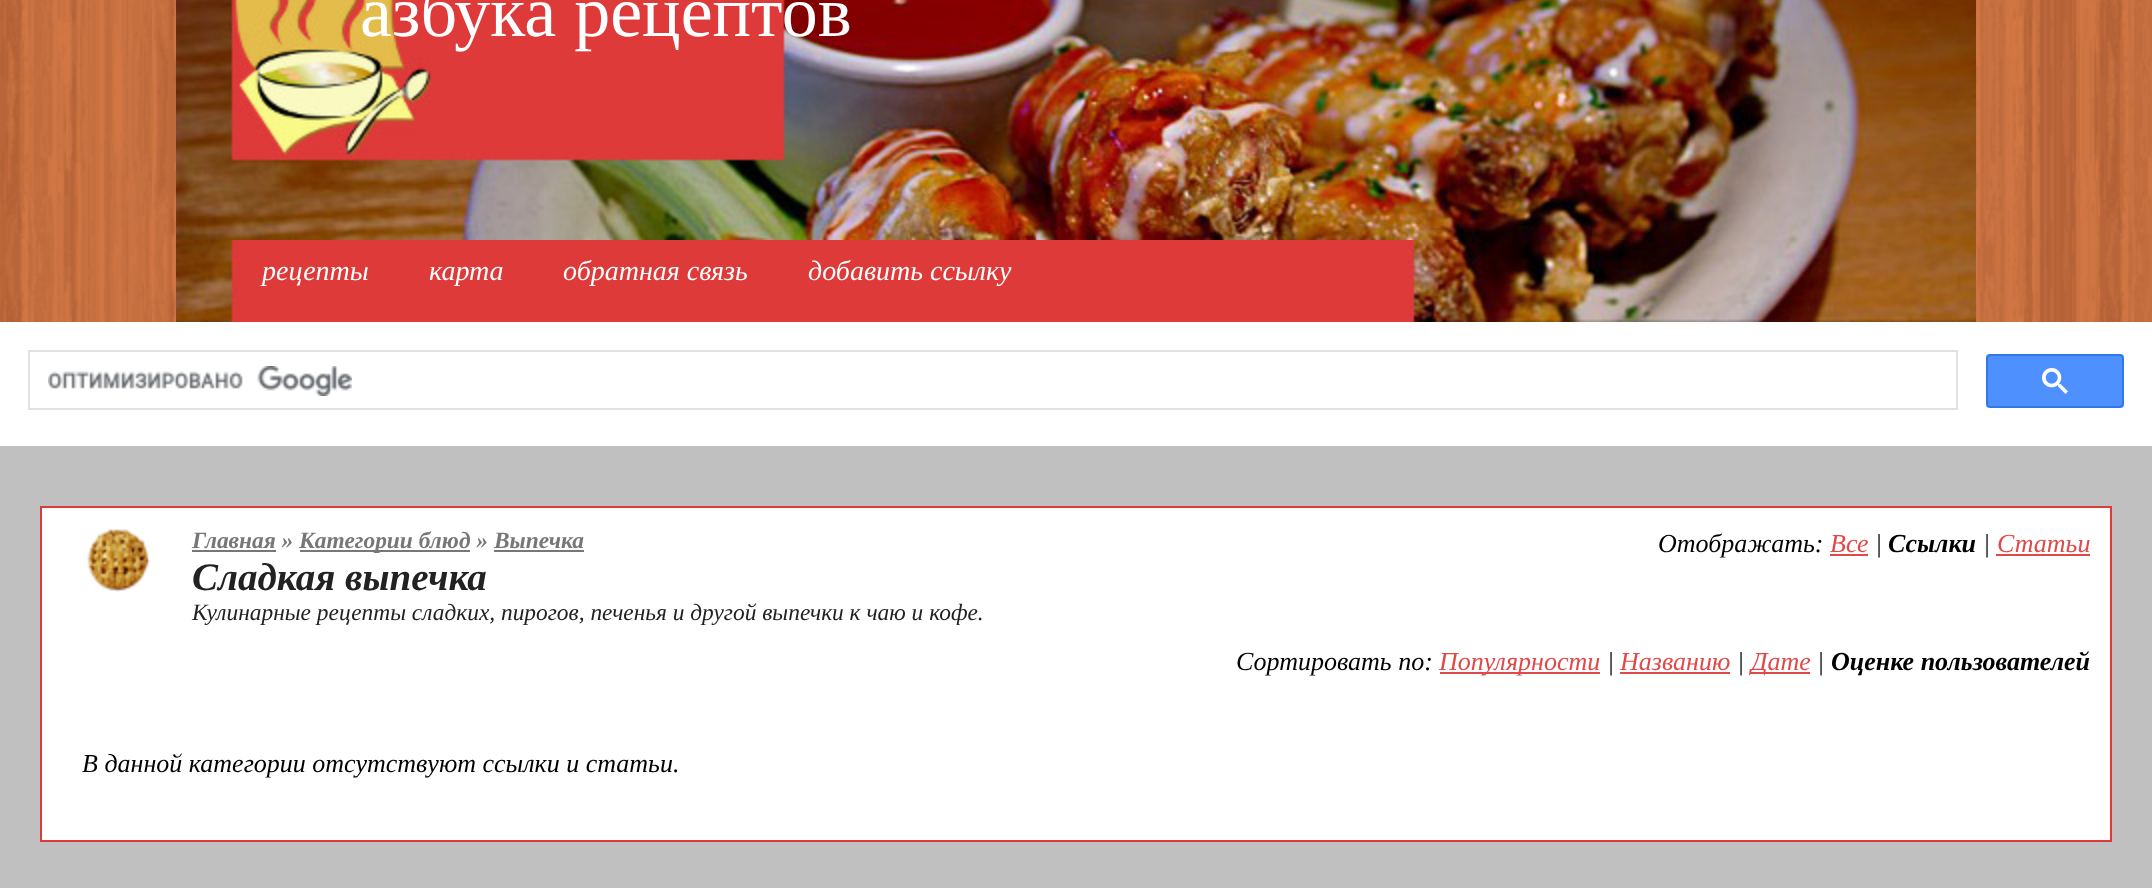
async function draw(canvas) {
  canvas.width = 2152
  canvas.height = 888
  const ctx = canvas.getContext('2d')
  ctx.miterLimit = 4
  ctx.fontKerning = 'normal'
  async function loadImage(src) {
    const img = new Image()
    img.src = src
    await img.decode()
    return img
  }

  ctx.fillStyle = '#c0c0c0'
  ctx.fillRect(0, 0, 2152, 888)
  ctx.drawImage(await loadImage('image0.png'), 0, 0, 2152, 322)
  ctx.drawImage(await loadImage('image1.png'), 176, 0, 1800, 240)
  ctx.font = '72px Liberation Serif'
  ctx.fillStyle = '#fff'
  ctx.fillText('азбука рецептов', 360, 36)
  ctx.drawImage(await loadImage('image2.png'), 176, 240, 1800, 82)
  ctx.font = 'italic 28px Liberation Serif'
  ctx.fillText('рецепты', 262, 280)
  ctx.fillText('карта', 429, 280)
  ctx.fillText('обратная связь', 563, 280)
  ctx.fillText('добавить ссылку', 808, 280)
  ctx.fillRect(0, 322, 2152, 124)
  ctx.strokeStyle = '#dfe1e5'
  ctx.lineWidth = 2
  ctx.strokeRect(29, 351, 1928, 58)
  ctx.drawImage(await loadImage('image3.png'), 48, 366, 304, 30)
  ctx.fillStyle = '#4d90fe'
  ctx.beginPath()
  ctx.roundRect(1987, 355, 136, 52, 3)
  ctx.fill()
  ctx.strokeStyle = '#3079ed'
  ctx.stroke()
  ctx.drawImage(await loadImage('image4.png'), 2042, 368, 26, 26)
  ctx.fillStyle = '#fff'
  ctx.fillRect(42, 508, 2068, 332)
  ctx.fillStyle = '#de3a39'
  ctx.fillRect(40, 506, 2072, 2)
  ctx.fillRect(2110, 506, 2, 336)
  ctx.fillRect(40, 840, 2072, 2)
  ctx.fillRect(40, 506, 2, 336)
  ctx.drawImage(await loadImage('image5.png'), 87, 529, 63, 63)
  ctx.font = 'italic bold 23.4px Liberation Serif'
  ctx.fillStyle = '#777'
  ctx.fillText('Главная »', 192, 548)
  ctx.fillRect(192, 550, 84, 2)
  ctx.fillRect(300, 550, 170, 2)
  ctx.fillText('Категории блюд » Выпечка', 299, 548)
  ctx.fillRect(494, 550, 90, 2)
  ctx.font = 'italic 26px Liberation Serif'
  ctx.fillStyle = '#000'
  ctx.fillText('Отображать:', 1658, 552)
  ctx.fillStyle = '#e14949'
  ctx.fillText('Все', 1830, 552)
  ctx.fillRect(1830, 554, 38, 2)
  ctx.fillStyle = '#000'
  ctx.fillText('|', 1875, 552)
  ctx.font = 'italic bold 26px Liberation Serif'
  ctx.fillText('Ссылки', 1888, 552)
  ctx.font = 'italic 26px Liberation Serif'
  ctx.fillText('|', 1983, 552)
  ctx.fillStyle = '#e14949'
  ctx.fillText('Статьи', 1997, 552)
  ctx.fillRect(1996, 554, 94, 2)
  ctx.font = 'italic bold 39px Liberation Serif'
  ctx.fillStyle = '#222'
  ctx.fillText('Сладкая выпечка', 192, 590)
  ctx.font = 'italic 23.4px Liberation Serif'
  ctx.fillText('Кулинарные рецепты сладких, пирогов, печенья и другой выпечки к чаю и кофе.', 192, 620)
  ctx.font = 'italic 26px Liberation Serif'
  ctx.fillStyle = '#000'
  ctx.fillText('Сортировать по:', 1236, 670)
  ctx.fillStyle = '#e14949'
  ctx.fillRect(1440, 672, 160, 2)
  ctx.fillText('Популярности', 1439, 670)
  ctx.fillStyle = '#000'
  ctx.fillText('|', 1607, 670)
  ctx.fillStyle = '#e14949'
  ctx.fillText('Названию', 1620, 670)
  ctx.fillRect(1620, 672, 110, 2)
  ctx.fillStyle = '#000'
  ctx.fillText('|', 1737, 670)
  ctx.fillStyle = '#e14949'
  ctx.fillRect(1750, 672, 60, 2)
  ctx.fillText('Дате', 1751, 670)
  ctx.fillStyle = '#000'
  ctx.fillText('|', 1817, 670)
  ctx.font = 'italic bold 26px Liberation Serif'
  ctx.fillText('Оценке пользователей', 1831, 670)
  ctx.font = 'italic 26px Liberation Serif'
  ctx.fillText('В данной категории отсутствуют ссылки и статьи.', 82, 772)
}

draw(document.querySelector('canvas'))
